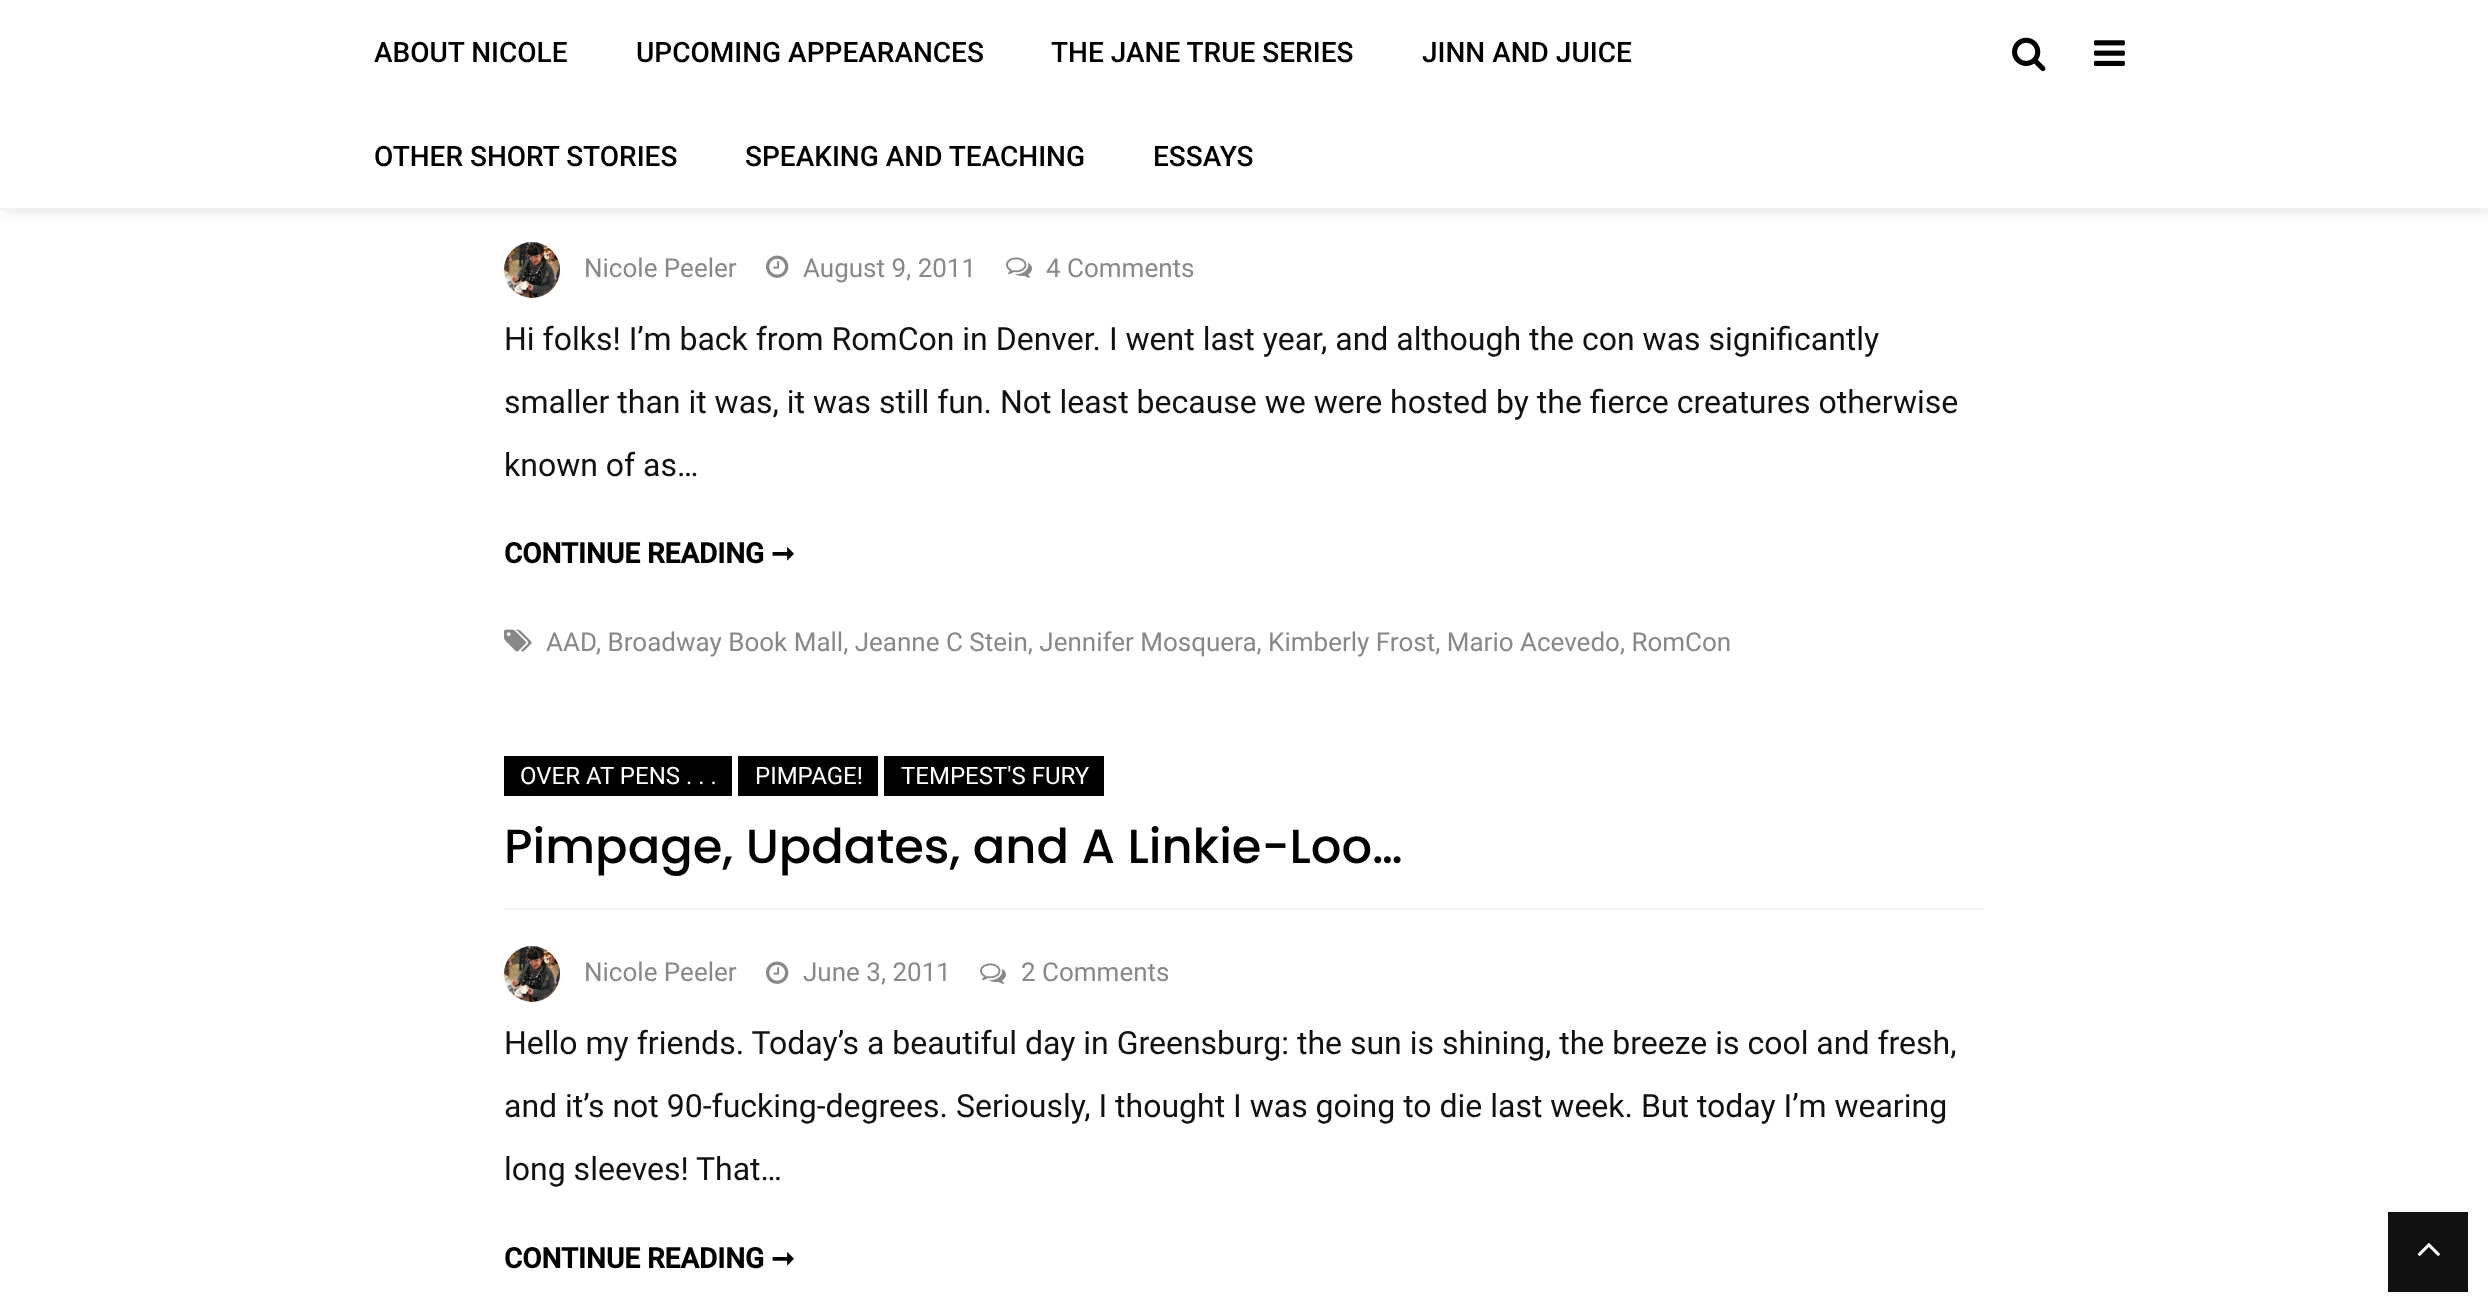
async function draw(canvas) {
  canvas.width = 2488
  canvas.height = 1311
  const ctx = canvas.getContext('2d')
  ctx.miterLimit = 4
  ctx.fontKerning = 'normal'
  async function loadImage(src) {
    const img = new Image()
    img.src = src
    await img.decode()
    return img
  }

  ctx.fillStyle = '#fff'
  ctx.fillRect(0, 0, 2488, 1311)
  ctx.fillStyle = '#0000001a'
  ctx.filter = 'blur(5px)'
  ctx.beginPath()
  ctx.rect(4, 2, 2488, 210)
  ctx.fill()
  ctx.filter = 'none'
  ctx.fillStyle = '#fff'
  ctx.fillRect(0, 0, 2488, 208)
  ctx.fillStyle = '#f1f1f1'
  ctx.fillRect(0, 208, 2488, 2)
  ctx.font = '500 28px Roboto'
  ctx.fillStyle = '#000'
  ctx.fillText('ABOUT NICOLE', 374, 62)
  ctx.fillText('UPCOMING APPEARANCES', 636, 62)
  ctx.fillText('THE JANE TRUE SERIES', 1051, 62)
  ctx.fillText('JINN AND JUICE', 1422, 62)
  ctx.fillText('OTHER SHORT STORIES', 374, 166)
  ctx.fillText('SPEAKING AND TEACHING', 745, 166)
  ctx.fillText('ESSAYS', 1153, 166)
  ctx.drawImage(await loadImage('image0.png'), 2012, 37, 34, 35)
  ctx.drawImage(await loadImage('image1.png'), 2094, 40, 31, 26)
  ctx.drawImage(await loadImage('image2.png'), 504, 242, 56, 56)
  ctx.font = '26px Roboto'
  ctx.fillStyle = '#888'
  ctx.fillText('Nicole Peeler', 584, 277)
  ctx.drawImage(await loadImage('image3.png'), 766, 255, 23, 23)
  ctx.fillText('August 9, 2011', 803, 277)
  ctx.drawImage(await loadImage('image4.png'), 1006, 257, 26, 21)
  ctx.fillText('4 Comments', 1046, 277)
  ctx.font = '32px Roboto'
  ctx.fillStyle = '#111'
  ctx.fillText('Hi folks! I’m back from RomCon in Denver. I went last year, and although the con was significantly', 504, 350)
  ctx.fillText('smaller than it was, it was still fun. Not least because we were hosted by the fierce creatures otherwise', 504, 413)
  ctx.fillText('known of as…', 504, 476)
  ctx.font = 'bold 28px Roboto'
  ctx.fillStyle = '#000'
  ctx.fillText('CONTINUE READING', 504, 563)
  ctx.font = 'bold 28px DejaVu Sans'
  ctx.fillText('➞', 771, 563)
  ctx.drawImage(await loadImage('image5.png'), 504, 629, 28, 23)
  ctx.font = '26px Roboto'
  ctx.fillStyle = '#888'
  ctx.fillText('AAD', 546, 651)
  ctx.fillText(', Broadway Book Mall, Jeanne C Stein, Jennifer Mosquera, Kimberly Frost, Mario Acevedo, RomCon', 596, 651)
  ctx.fillStyle = '#000'
  ctx.fillRect(504, 756, 228, 40)
  ctx.font = '24px Roboto'
  ctx.fillStyle = '#fff'
  ctx.fillText('OVER AT PENS . . .', 520, 784)
  ctx.fillStyle = '#000'
  ctx.fillRect(738, 756, 140, 40)
  ctx.fillStyle = '#fff'
  ctx.fillText('PIMPAGE!', 755, 784)
  ctx.fillStyle = '#000'
  ctx.fillRect(884, 756, 220, 40)
  ctx.fillStyle = '#fff'
  ctx.fillText('TEMPEST\'S FURY', 901, 784)
  ctx.fillStyle = '#f1f1f1'
  ctx.fillRect(504, 908, 1480, 2)
  ctx.font = '500 48px Poppins'
  ctx.fillStyle = '#000'
  ctx.fillText('Pimpage, Updates, and A Linkie-Loo…', 504, 863)
  ctx.drawImage(await loadImage('image2.png'), 504, 946, 56, 56)
  ctx.font = '26px Roboto'
  ctx.fillStyle = '#888'
  ctx.fillText('Nicole Peeler', 584, 981)
  ctx.drawImage(await loadImage('image3.png'), 766, 961, 23, 23)
  ctx.fillText('June 3, 2011', 803, 981)
  ctx.drawImage(await loadImage('image4.png'), 980, 963, 26, 21)
  ctx.fillText('2 Comments', 1021, 981)
  ctx.font = '32px Roboto'
  ctx.fillStyle = '#111'
  ctx.fillText('Hello my friends. Today’s a beautiful day in Greensburg: the sun is shining, the breeze is cool and fresh,', 504, 1054)
  ctx.fillText('and it’s not 90-fucking-degrees. Seriously, I thought I was going to die last week. But today I’m wearing', 504, 1117)
  ctx.fillText('long sleeves! That…', 504, 1180)
  ctx.font = 'bold 28px Roboto'
  ctx.fillStyle = '#000'
  ctx.fillText('CONTINUE READING', 504, 1268)
  ctx.font = 'bold 28px DejaVu Sans'
  ctx.fillText('➞', 771, 1268)
  ctx.fillStyle = '#111'
  ctx.fillRect(2388, 1212, 80, 80)
  ctx.drawImage(await loadImage('image6.png'), 2417, 1243, 23, 13)
}

draw(document.querySelector('canvas'))
